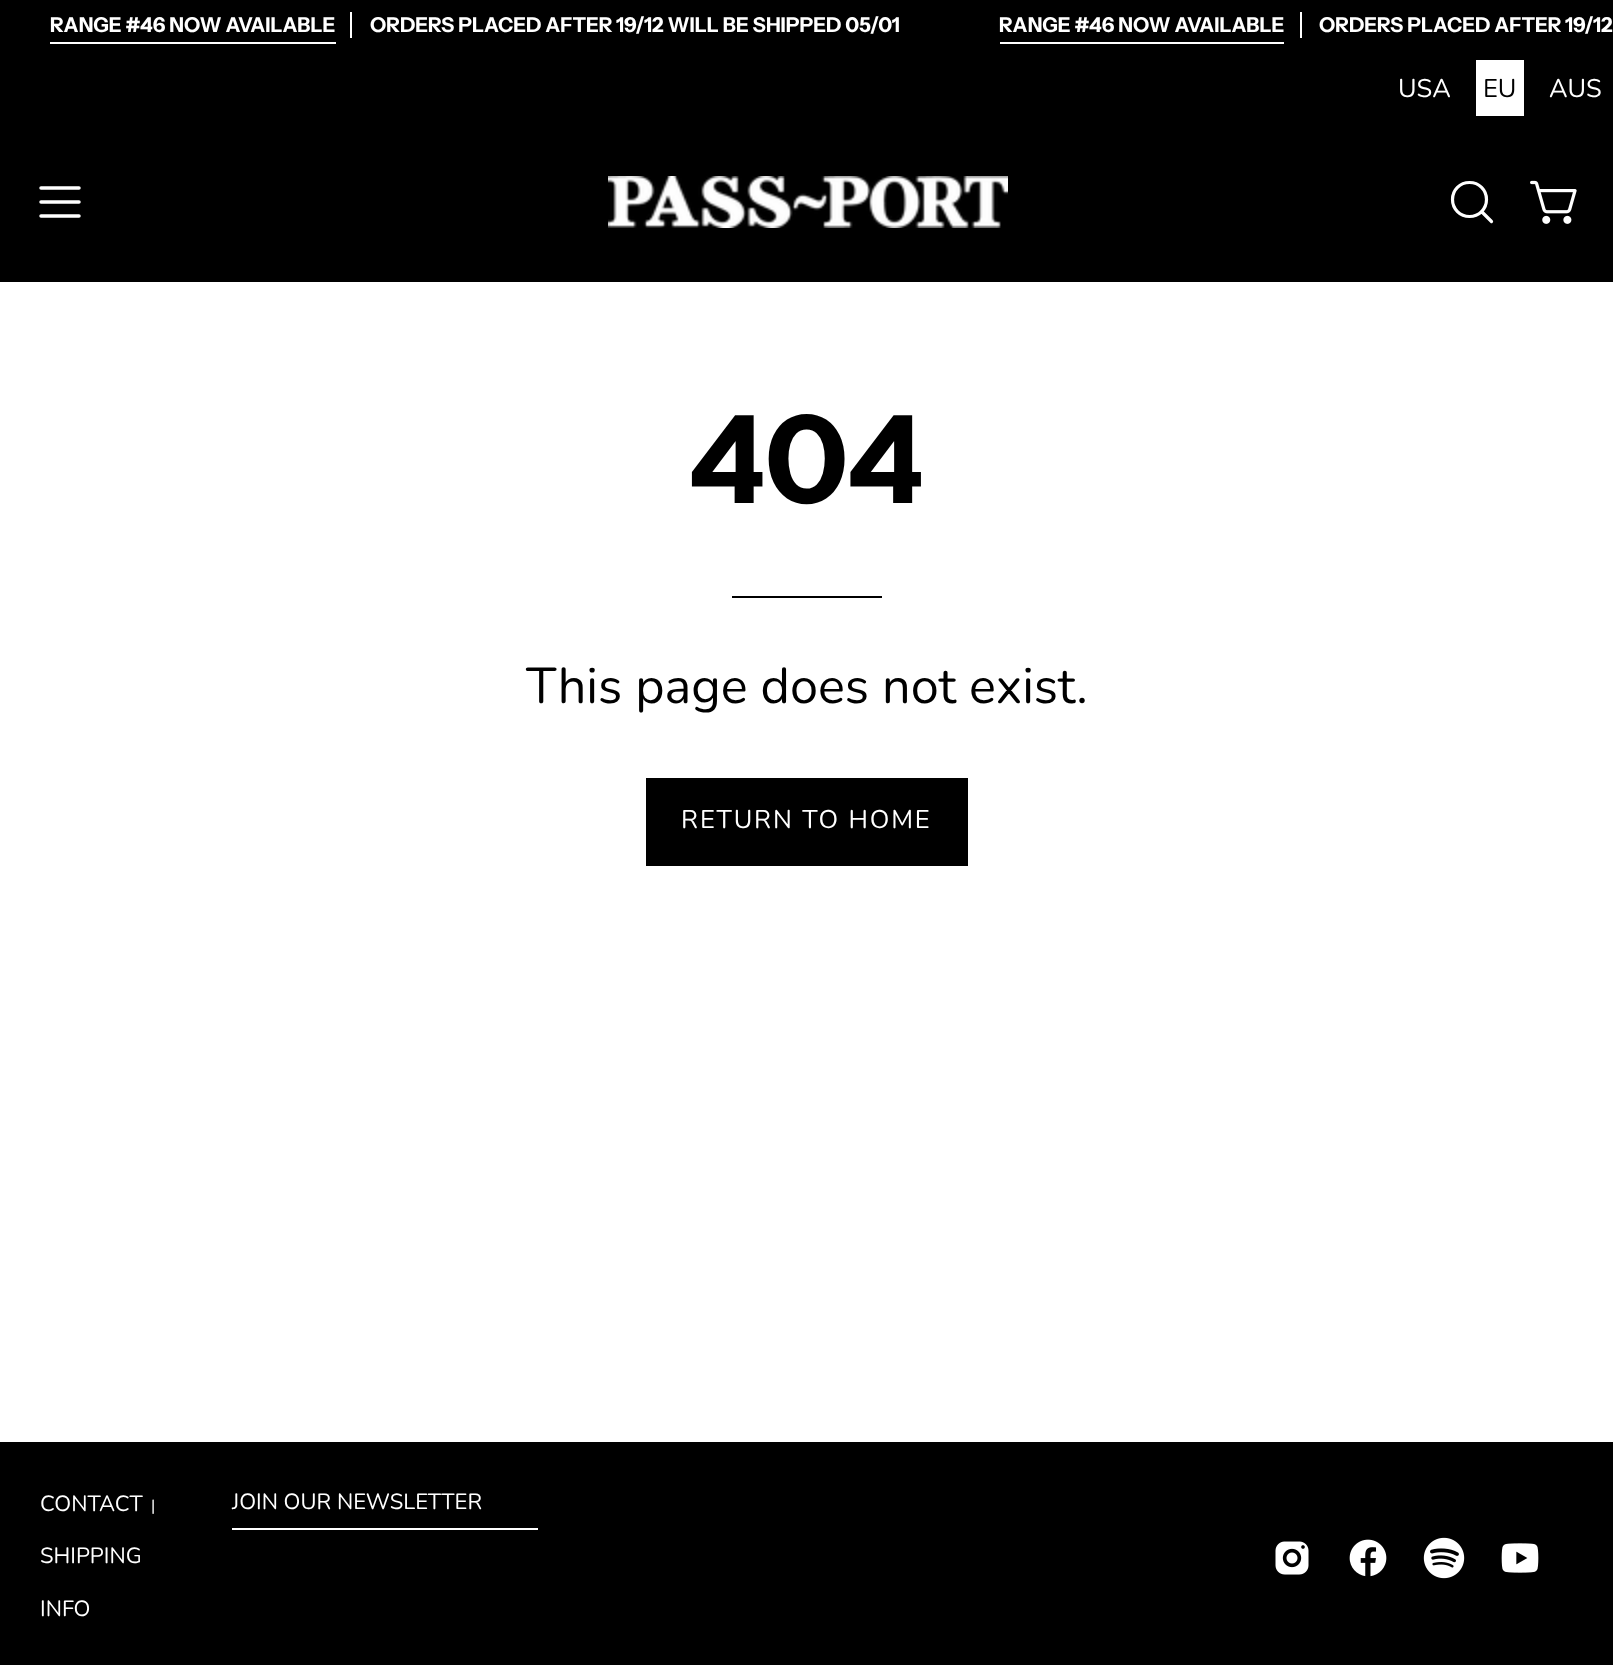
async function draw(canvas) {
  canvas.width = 1613
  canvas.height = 1665
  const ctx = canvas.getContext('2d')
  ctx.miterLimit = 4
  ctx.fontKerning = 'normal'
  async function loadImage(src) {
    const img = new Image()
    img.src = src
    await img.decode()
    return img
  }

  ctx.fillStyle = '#fff'
  ctx.fillRect(0, 0, 1613, 1665)
  ctx.fillStyle = '#000'
  ctx.fillRect(0, 0, 1613, 282)
  ctx.font = 'bold 20.4px Instrument Sans'
  ctx.fillStyle = '#fff'
  ctx.fillText('RANGE #46 NOW AVAILABLE', 50, 32)
  ctx.fillRect(50, 42, 286, 2)
  ctx.fillRect(350, 12, 2, 26)
  ctx.fillText('ORDERS PLACED AFTER 19/12 WILL BE SHIPPED 05/01', 370, 32)
  ctx.fillText('RANGE #46 NOW AVAILABLE', 999, 32)
  ctx.fillRect(1000, 42, 284, 2)
  ctx.fillRect(1300, 12, 2, 26)
  ctx.fillText('ORDERS PLACED AFTER 19/12', 1319, 32)
  ctx.font = '25.5px Nunito'
  ctx.fillText('USA', 1398, 97)
  ctx.fillRect(1476, 60, 48, 56)
  ctx.fillStyle = '#000'
  ctx.fillText('EU', 1483, 97)
  ctx.fillStyle = '#fff'
  ctx.fillText('AUS', 1549, 97)
  ctx.beginPath()
  ctx.moveTo(41, 202)
  ctx.lineTo(79, 202)
  ctx.moveTo(41, 188)
  ctx.lineTo(79, 188)
  ctx.moveTo(41, 216)
  ctx.lineTo(79, 216)
  ctx.strokeStyle = '#fff'
  ctx.lineWidth = 3.5
  ctx.lineCap = 'round'
  ctx.lineJoin = 'round'
  ctx.stroke()
  ctx.drawImage(await loadImage('image0.png'), 608, 176, 400, 52)
  ctx.beginPath()
  ctx.moveTo(1469.5, 216.5)
  ctx.bezierCurveTo(1479, 216.5, 1486.5, 209, 1486.5, 199.5)
  ctx.bezierCurveTo(1486.5, 190, 1479, 182.5, 1469.5, 182.5)
  ctx.bezierCurveTo(1460, 182.5, 1452.5, 190, 1452.5, 199.5)
  ctx.bezierCurveTo(1452.5, 209, 1460, 216.5, 1469.5, 216.5)
  ctx.closePath()
  ctx.moveTo(1481.5, 211.5)
  ctx.lineTo(1491.5, 221.5)
  ctx.lineWidth = 3.2
  ctx.stroke()
  ctx.drawImage(await loadImage('image1.png'), 1530, 180, 47, 44)
  ctx.font = 'bold 122px Instrument Sans'
  ctx.fillStyle = '#000'
  ctx.fillText('404', 689, 503)
  ctx.fillRect(732, 596, 150, 2)
  ctx.font = '50.4px Nunito'
  ctx.fillText('This page does not exist.', 526, 703)
  ctx.fillRect(646, 778, 322, 88)
  ctx.letterSpacing = '1.9px'
  ctx.font = '25.5px Nunito'
  ctx.fillStyle = '#fff'
  ctx.fillText('RETURN TO HOME', 681, 828)
  ctx.fillStyle = '#000'
  ctx.fillRect(0, 1442, 1613, 223)
  ctx.letterSpacing = '0px'
  ctx.font = '22px Nunito'
  ctx.fillStyle = '#fff'
  ctx.fillText('CONTACT', 40, 1511)
  ctx.font = '16px Nunito'
  ctx.fillText('|', 151, 1511)
  ctx.font = '22px Nunito'
  ctx.fillText('SHIPPING', 40, 1563)
  ctx.fillText('INFO', 40, 1616)
  ctx.fillRect(232, 1528, 306, 2)
  ctx.fillText('JOIN OUR NEWSLETTER', 232, 1509)
  ctx.drawImage(await loadImage('image2.png'), 1275, 1541, 34, 34)
  ctx.drawImage(await loadImage('image3.png'), 1349, 1539, 38, 38)
  ctx.drawImage(await loadImage('image4.png'), 1423, 1537, 42, 42)
  ctx.drawImage(await loadImage('image5.png'), 1501, 1543, 38, 30)
}

draw(document.querySelector('canvas'))
